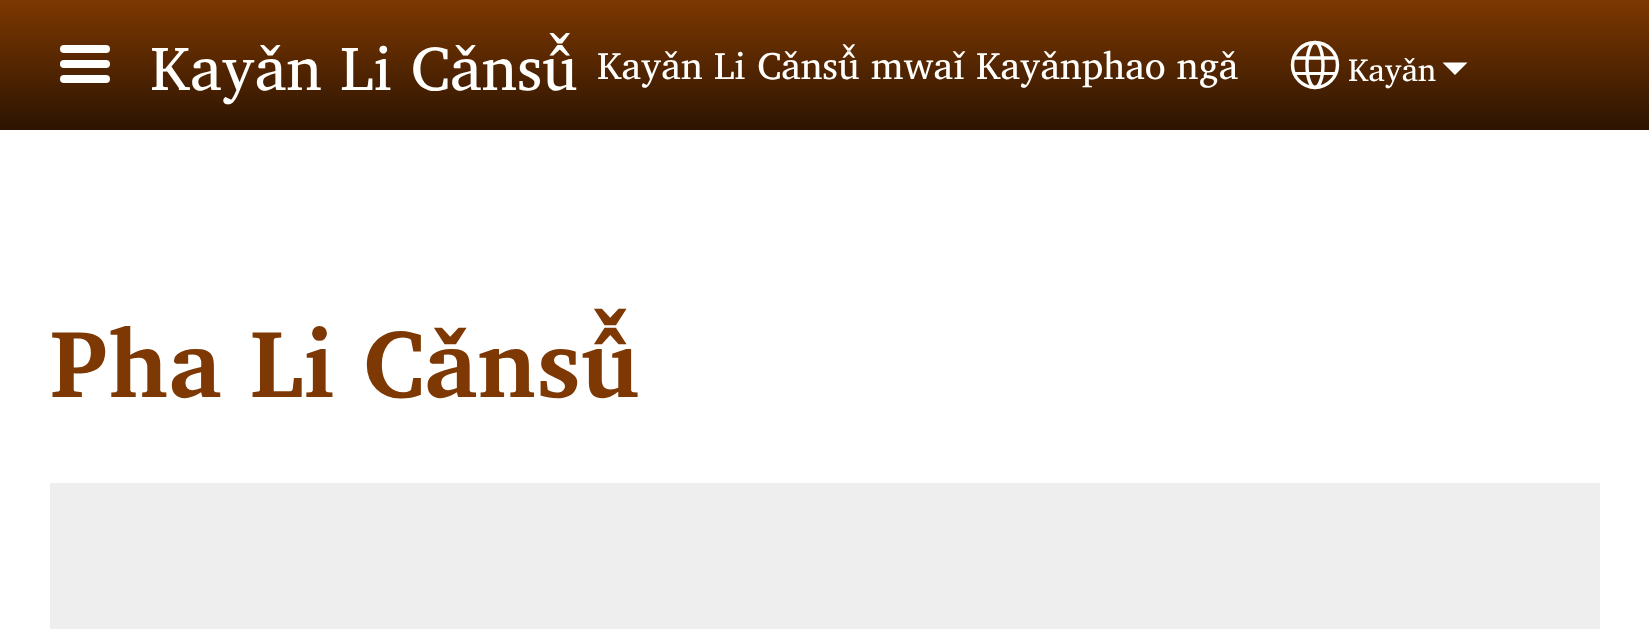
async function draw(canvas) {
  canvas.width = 1649
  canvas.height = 629
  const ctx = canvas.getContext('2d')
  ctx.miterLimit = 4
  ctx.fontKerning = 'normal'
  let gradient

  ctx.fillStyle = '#fff'
  ctx.fillRect(0, 0, 1649, 629)
  gradient = ctx.createLinearGradient(825, 0, 825, 130)
  gradient.addColorStop(0, '#7d3801')
  gradient.addColorStop(1, '#2c1401')
  ctx.fillStyle = gradient
  ctx.fillRect(0, 0, 1649, 130)
  ctx.fillStyle = '#fffffe'
  ctx.beginPath()
  ctx.roundRect(60, 45, 50, 8, 4)
  ctx.fill()
  ctx.beginPath()
  ctx.roundRect(60, 60, 50, 8, 4)
  ctx.fill()
  ctx.beginPath()
  ctx.roundRect(60, 75, 50, 8, 4)
  ctx.fill()
  ctx.font = '62.5px Charis SIL'
  ctx.fillText('Kayǎn Li Cǎnsû̌', 150, 90)
  ctx.font = '38.4px Charis SIL'
  ctx.fillText('Kayǎn Li Cǎnsû̌ mwaǐ Kayǎnphao ngǎ', 597, 79)
  ctx.beginPath()
  ctx.arc(1315, 65, 22.5, 0, 2 * Math.PI)
  ctx.strokeStyle = '#fffffe'
  ctx.lineWidth = 3.4
  ctx.stroke()
  ctx.beginPath()
  ctx.ellipse(1315, 65, 8, 22.5, 0, 0, 2 * Math.PI)
  ctx.stroke()
  ctx.beginPath()
  ctx.moveTo(1293, 58)
  ctx.lineTo(1336.5, 58)
  ctx.stroke()
  ctx.fillRect(1293, 72, 44, 3)
  ctx.font = '32px Charis SIL'
  ctx.fillText('Kayǎn', 1348, 81)
  ctx.beginPath()
  ctx.moveTo(1442.5, 62.5)
  ctx.lineTo(1467.5, 62.5)
  ctx.lineTo(1455, 75)
  ctx.closePath()
  ctx.fill()
  ctx.font = 'bold 96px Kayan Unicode'
  ctx.fillStyle = '#7d3803'
  ctx.fillText('Pha Li Cǎnsû̌', 50, 397)
  ctx.fillStyle = '#eee'
  ctx.fillRect(50, 483, 1550, 146)
}

draw(document.querySelector('canvas'))
